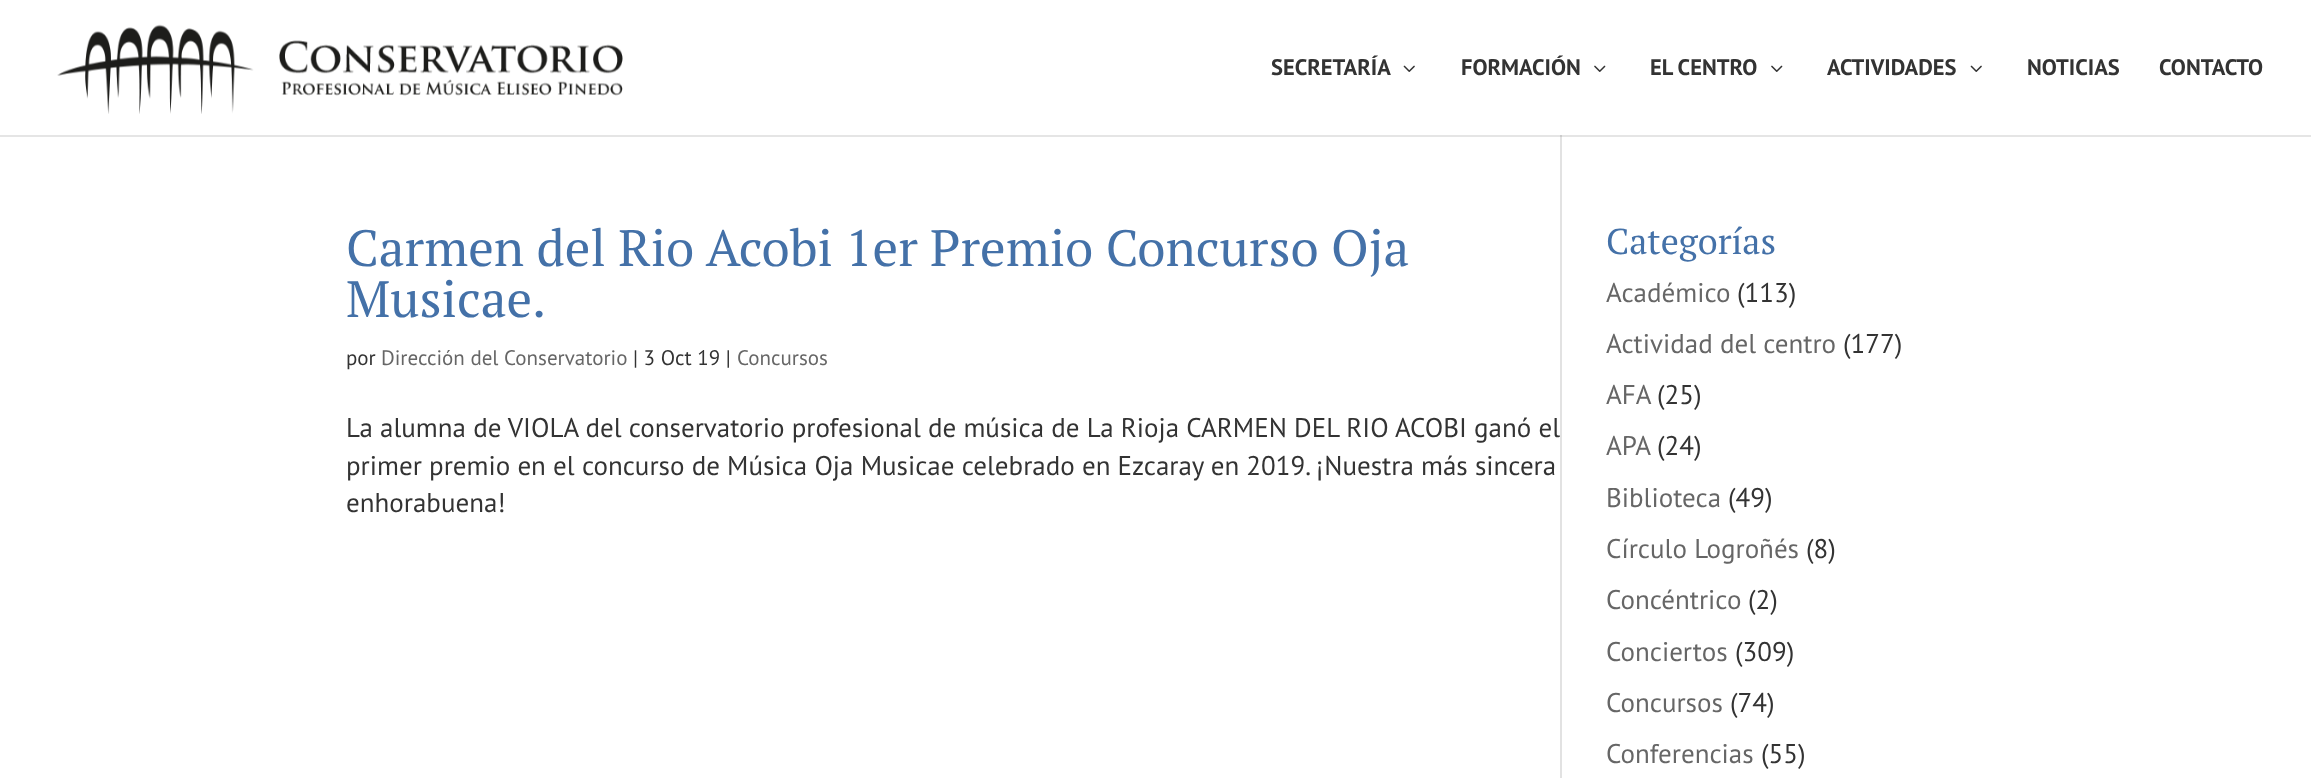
async function draw(canvas) {
  canvas.width = 2311
  canvas.height = 778
  const ctx = canvas.getContext('2d')
  ctx.miterLimit = 4
  ctx.fontKerning = 'normal'
  async function loadImage(src) {
    const img = new Image()
    img.src = src
    await img.decode()
    return img
  }

  ctx.fillStyle = '#fff'
  ctx.fillRect(0, 0, 2311, 778)
  ctx.fillStyle = '#e2e2e2'
  ctx.fillRect(1560, 135, 2, 643)
  ctx.fillStyle = '#0000001a'
  ctx.beginPath()
  ctx.moveTo(0, 135)
  ctx.lineTo(0, 137)
  ctx.lineTo(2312, 137)
  ctx.lineTo(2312, 2)
  ctx.lineTo(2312, 135)
  ctx.closePath()
  ctx.fill()
  ctx.drawImage(await loadImage('image0.png'), 57, 24, 566, 90)
  ctx.font = 'bold 22.5px PT Sans'
  ctx.fillStyle = '#333'
  ctx.fillText('SECRETARÍA', 1271, 75)
  ctx.drawImage(await loadImage('image1.png'), 1403, 65, 12, 7)
  ctx.fillText('FORMACIÓN', 1461, 75)
  ctx.drawImage(await loadImage('image2.png'), 1594, 65, 12, 7)
  ctx.fillText('EL CENTRO', 1650, 75)
  ctx.drawImage(await loadImage('image2.png'), 1771, 65, 12, 7)
  ctx.fillText('ACTIVIDADES', 1827, 75)
  ctx.drawImage(await loadImage('image1.png'), 1970, 65, 12, 7)
  ctx.fillText('NOTICIAS', 2027, 75)
  ctx.fillText('CONTACTO', 2159, 75)
  ctx.font = '51px PT Serif'
  ctx.fillStyle = '#4471a8'
  ctx.fillText('Carmen del Rio Acobi 1er Premio Concurso Oja', 346, 266)
  ctx.fillText('Musicae.', 346, 317)
  ctx.font = '21px PT Sans'
  ctx.fillStyle = '#333'
  ctx.fillText('por', 346, 365)
  ctx.fillStyle = '#666'
  ctx.fillText('Dirección del Conservatorio', 381, 365)
  ctx.fillStyle = '#333'
  ctx.fillText('| 3 Oct 19 |', 633, 365)
  ctx.fillStyle = '#666'
  ctx.fillText('Concursos', 737, 365)
  ctx.font = '27px PT Sans'
  ctx.fillStyle = '#333'
  ctx.fillText('La alumna de VIOLA del conservatorio profesional de música de La Rioja CARMEN DEL RIO ACOBI ganó el', 346, 437)
  ctx.fillText('primer premio en el concurso de Música Oja Musicae celebrado en Ezcaray en 2019. ¡Nuestra más sincera', 346, 475)
  ctx.fillText('enhorabuena!', 346, 512)
  ctx.font = '36px PT Serif'
  ctx.fillStyle = '#4471a8'
  ctx.fillText('Categorías', 1606, 254)
  ctx.font = '27px PT Sans'
  ctx.fillStyle = '#666'
  ctx.fillText('Académico', 1606, 302)
  ctx.fillStyle = '#333'
  ctx.fillText('(113)', 1737, 302)
  ctx.fillStyle = '#666'
  ctx.fillText('Actividad del centro', 1606, 353)
  ctx.fillStyle = '#333'
  ctx.fillText('(177)', 1843, 353)
  ctx.fillStyle = '#666'
  ctx.fillText('AFA', 1606, 404)
  ctx.fillStyle = '#333'
  ctx.fillText('(25)', 1657, 404)
  ctx.fillStyle = '#666'
  ctx.fillText('APA', 1606, 455)
  ctx.fillStyle = '#333'
  ctx.fillText('(24)', 1657, 455)
  ctx.fillStyle = '#666'
  ctx.fillText('Biblioteca', 1606, 507)
  ctx.fillStyle = '#333'
  ctx.fillText('(49)', 1728, 507)
  ctx.fillStyle = '#666'
  ctx.fillText('Círculo Logroñés', 1606, 558)
  ctx.fillStyle = '#333'
  ctx.fillText('(8)', 1806, 558)
  ctx.fillStyle = '#666'
  ctx.fillText('Concéntrico', 1606, 609)
  ctx.fillStyle = '#333'
  ctx.fillText('(2)', 1748, 609)
  ctx.fillStyle = '#666'
  ctx.fillText('Conciertos', 1606, 661)
  ctx.fillStyle = '#333'
  ctx.fillText('(309)', 1735, 661)
  ctx.fillStyle = '#666'
  ctx.fillText('Concursos', 1606, 712)
  ctx.fillStyle = '#333'
  ctx.fillText('(74)', 1730, 712)
  ctx.fillStyle = '#666'
  ctx.fillText('Conferencias', 1606, 763)
  ctx.fillStyle = '#333'
  ctx.fillText('(55)', 1761, 763)
}

draw(document.querySelector('canvas'))
